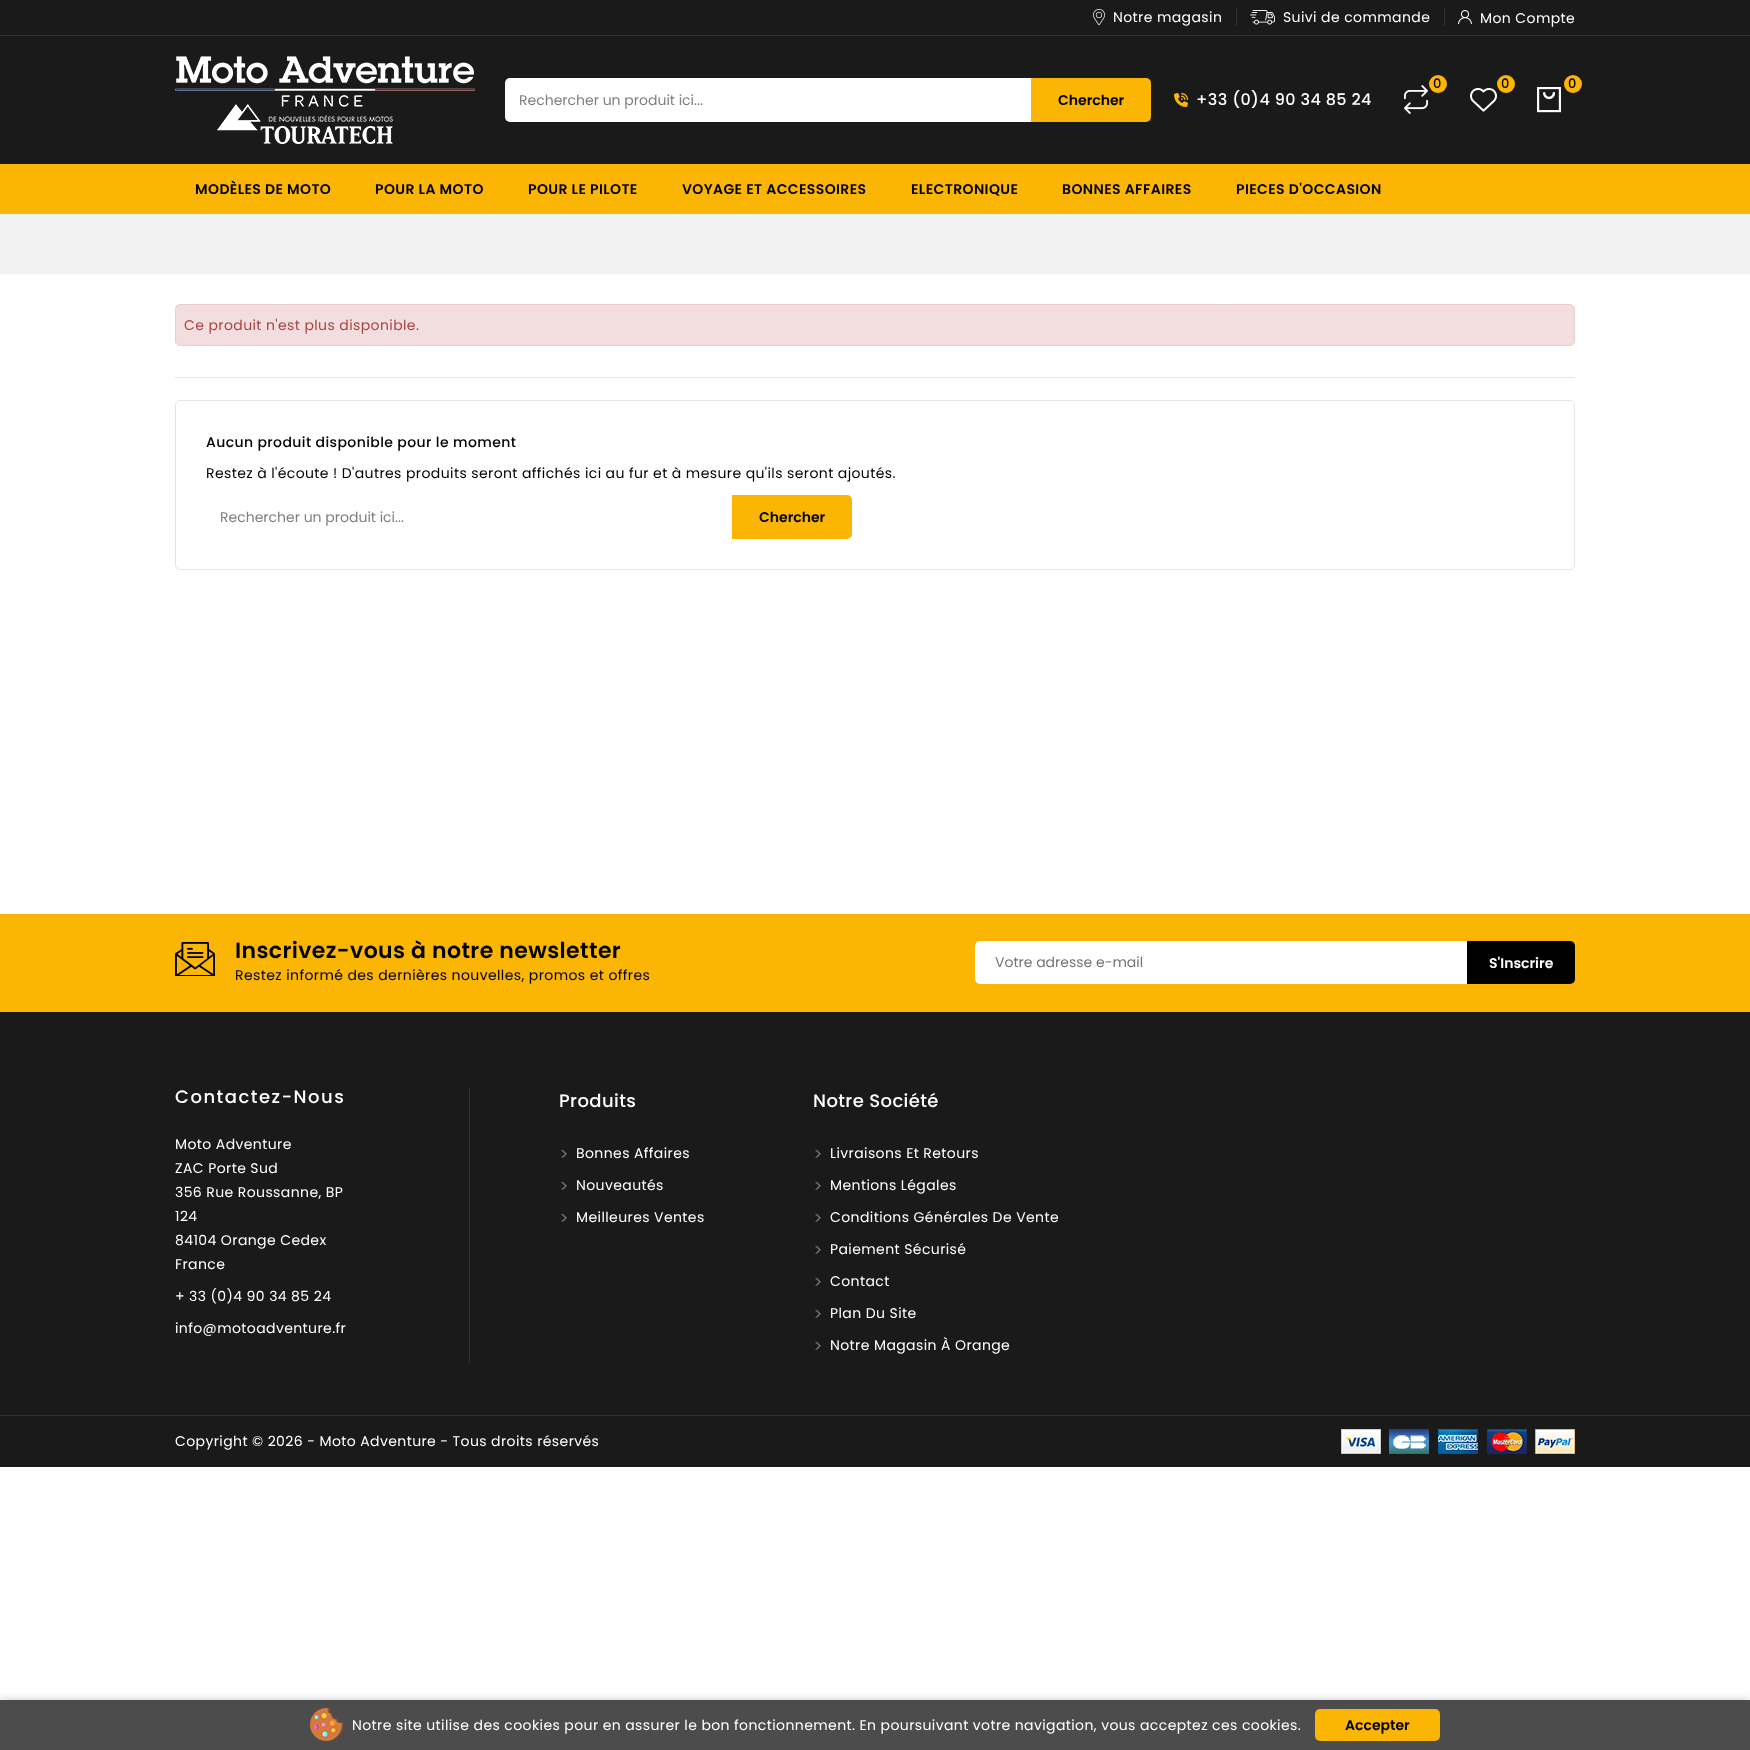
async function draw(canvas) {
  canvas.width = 1750
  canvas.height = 1750
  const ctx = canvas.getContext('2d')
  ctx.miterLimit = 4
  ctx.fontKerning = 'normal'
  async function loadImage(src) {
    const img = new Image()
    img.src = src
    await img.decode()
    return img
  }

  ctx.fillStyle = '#fff'
  ctx.fillRect(0, 0, 1750, 1750)
  ctx.fillStyle = '#1a1a1a'
  ctx.fillRect(0, 0, 1750, 164)
  ctx.fillStyle = '#313131'
  ctx.fillRect(0, 35, 1750, 1)
  ctx.drawImage(await loadImage('image0.png'), 1093, 9, 12, 17)
  ctx.letterSpacing = '0.4px'
  ctx.font = '14px Poppins'
  ctx.fillStyle = '#fff'
  ctx.fillText('Notre magasin', 1113, 22)
  ctx.fillStyle = '#313131'
  ctx.fillRect(1236, 8, 1, 18)
  ctx.drawImage(await loadImage('image1.png'), 1250, 10, 25, 15)
  ctx.fillStyle = '#fff'
  ctx.fillText('Suivi de commande', 1283, 22)
  ctx.fillStyle = '#313131'
  ctx.fillRect(1444, 8, 1, 18)
  ctx.drawImage(await loadImage('image2.png'), 1458, 10, 14, 14)
  ctx.fillStyle = '#fff'
  ctx.fillText('Mon Compte', 1480, 23)
  ctx.drawImage(await loadImage('image3.png'), 175, 56, 300, 88)
  ctx.fillStyle = '#fab505'
  ctx.beginPath()
  ctx.arc(1438, 84, 9, 0, 2 * Math.PI)
  ctx.fill()
  ctx.font = '500 13px Poppins'
  ctx.fillStyle = '#000'
  ctx.fillText('0', 1433, 88)
  ctx.drawImage(await loadImage('image4.png'), 1404, 85, 24, 29)
  ctx.fillStyle = '#fab505'
  ctx.beginPath()
  ctx.arc(1506, 84, 9, 0, 2 * Math.PI)
  ctx.fill()
  ctx.fillStyle = '#000'
  ctx.fillText('0', 1501, 88)
  ctx.drawImage(await loadImage('image5.png'), 1470, 88, 27, 24)
  ctx.fillStyle = '#fab505'
  ctx.beginPath()
  ctx.arc(1573, 84, 9, 0, 2 * Math.PI)
  ctx.fill()
  ctx.fillStyle = '#000'
  ctx.fillText('0', 1568, 88)
  ctx.drawImage(await loadImage('image6.png'), 1537, 87, 24, 26)
  ctx.fillStyle = '#fff'
  ctx.beginPath()
  ctx.roundRect(505, 78, 526, 44, [5, 0, 0, 5])
  ctx.fill()
  ctx.letterSpacing = '0px'
  ctx.font = '14px Poppins'
  ctx.fillStyle = '#808080'
  ctx.fillText('Rechercher un produit ici...', 519, 105)
  ctx.fillStyle = '#fab505'
  ctx.beginPath()
  ctx.roundRect(1031, 78, 120, 44, [0, 5, 5, 0])
  ctx.fill()
  ctx.font = '600 14px Poppins'
  ctx.fillStyle = '#000'
  ctx.fillText('Chercher', 1058, 105)
  ctx.drawImage(await loadImage('image7.png'), 1174, 93, 14, 14)
  ctx.letterSpacing = '0.4px'
  ctx.font = '500 16px Poppins'
  ctx.fillStyle = '#fff'
  ctx.fillText('+33 (0)4 90 34 85 24', 1196, 105)
  ctx.fillStyle = '#fab505'
  ctx.fillRect(0, 164, 1750, 50)
  ctx.font = '600 14px Poppins'
  ctx.fillStyle = '#000'
  ctx.fillText('MODÈLES DE MOTO', 195, 194)
  ctx.fillText('POUR LA MOTO', 375, 194)
  ctx.fillText('POUR LE PILOTE', 528, 194)
  ctx.fillText('VOYAGE ET ACCESSOIRES', 682, 194)
  ctx.fillText('ELECTRONIQUE', 911, 194)
  ctx.fillText('BONNES AFFAIRES', 1062, 194)
  ctx.fillText('PIECES D\'OCCASION', 1236, 194)
  ctx.fillStyle = '#f2f2f2'
  ctx.fillRect(0, 214, 1750, 60)
  ctx.fillStyle = '#f2dede'
  ctx.beginPath()
  ctx.roundRect(175.5, 304.5, 1399, 41, 4.5)
  ctx.fill()
  ctx.strokeStyle = '#ebcccc'
  ctx.stroke()
  ctx.font = '14px Poppins'
  ctx.fillStyle = '#a94442'
  ctx.fillText('Ce produit n\'est plus disponible.', 184, 330)
  ctx.fillStyle = '#e5e5e5'
  ctx.fillRect(175, 377, 1400, 1)
  ctx.beginPath()
  ctx.roundRect(175.5, 400.5, 1399, 169, 4.5)
  ctx.strokeStyle = '#e5e5e5'
  ctx.stroke()
  ctx.font = '500 14px Poppins'
  ctx.fillStyle = '#000'
  ctx.fillText('Aucun produit disponible pour le moment', 206, 447)
  ctx.font = '14px Poppins'
  ctx.fillText('Restez à l\'écoute ! D\'autres produits seront affichés ici au fur et à mesure qu\'ils seront ajoutés.', 206, 478)
  ctx.letterSpacing = '0px'
  ctx.fillStyle = '#808080'
  ctx.fillText('Rechercher un produit ici...', 220, 522)
  ctx.fillStyle = '#fab505'
  ctx.beginPath()
  ctx.roundRect(732, 495, 120, 44, [0, 5, 5, 0])
  ctx.fill()
  ctx.font = '600 14px Poppins'
  ctx.fillStyle = '#000'
  ctx.fillText('Chercher', 759, 522)
  ctx.fillStyle = '#1a1a1a'
  ctx.fillRect(0, 1012, 1750, 455)
  ctx.fillStyle = '#fab505'
  ctx.fillRect(0, 914, 1750, 98)
  ctx.drawImage(await loadImage('image8.png'), 175, 942, 40, 34)
  ctx.letterSpacing = '0.4px'
  ctx.font = '600 22px Poppins'
  ctx.fillStyle = '#000'
  ctx.fillText('Inscrivez-vous à notre newsletter', 235, 958)
  ctx.font = '14px Poppins'
  ctx.fillText('Restez informé des dernières nouvelles, promos et offres', 235, 980)
  ctx.fillStyle = '#fff'
  ctx.beginPath()
  ctx.roundRect(975, 941, 492, 43, [5, 0, 0, 5])
  ctx.fill()
  ctx.letterSpacing = '0px'
  ctx.fillStyle = '#757575'
  ctx.fillText('Votre adresse e-mail', 995, 967)
  ctx.fillStyle = '#000'
  ctx.beginPath()
  ctx.roundRect(1467, 941, 108, 43, [0, 5, 5, 0])
  ctx.fill()
  ctx.font = '600 14px Poppins'
  ctx.fillStyle = '#fff'
  ctx.fillText('S\'Inscrire', 1489, 968)
  ctx.letterSpacing = '1.5px'
  ctx.font = '500 18px Poppins'
  ctx.fillText('Contactez-Nous', 175, 1103)
  ctx.letterSpacing = '0.4px'
  ctx.font = '14px Poppins'
  ctx.fillText('Moto Adventure', 175, 1149)
  ctx.fillText('ZAC Porte Sud', 175, 1173)
  ctx.fillText('356 Rue Roussanne, BP', 175, 1197)
  ctx.fillText('124', 175, 1221)
  ctx.fillText('84104 Orange Cedex', 175, 1245)
  ctx.fillText('France', 175, 1269)
  ctx.fillText('+ 33 (0)4 90 34 85 24', 175, 1301)
  ctx.fillText('info@motoadventure.fr', 175, 1333)
  ctx.fillStyle = '#303030'
  ctx.fillRect(469, 1087, 1, 276)
  ctx.font = '500 18px Poppins'
  ctx.fillStyle = '#fff'
  ctx.fillText('Produits', 559, 1107)
  ctx.drawImage(await loadImage('image9.png'), 561, 1150, 6, 8)
  ctx.font = '14px Poppins'
  ctx.fillText('Bonnes Affaires', 576, 1158)
  ctx.drawImage(await loadImage('image9.png'), 561, 1182, 6, 8)
  ctx.fillText('Nouveautés', 576, 1190)
  ctx.drawImage(await loadImage('image9.png'), 561, 1214, 6, 8)
  ctx.fillText('Meilleures Ventes', 576, 1222)
  ctx.font = '500 18px Poppins'
  ctx.fillText('Notre Société', 813, 1107)
  ctx.drawImage(await loadImage('image9.png'), 815, 1150, 6, 8)
  ctx.font = '14px Poppins'
  ctx.fillText('Livraisons Et Retours', 830, 1158)
  ctx.drawImage(await loadImage('image9.png'), 815, 1182, 6, 8)
  ctx.fillText('Mentions Légales', 830, 1190)
  ctx.drawImage(await loadImage('image9.png'), 815, 1214, 6, 8)
  ctx.fillText('Conditions Générales De Vente', 830, 1222)
  ctx.drawImage(await loadImage('image9.png'), 815, 1246, 6, 8)
  ctx.fillText('Paiement Sécurisé', 830, 1254)
  ctx.drawImage(await loadImage('image9.png'), 815, 1278, 6, 8)
  ctx.fillText('Contact', 830, 1286)
  ctx.drawImage(await loadImage('image9.png'), 815, 1310, 6, 8)
  ctx.fillText('Plan Du Site', 830, 1318)
  ctx.drawImage(await loadImage('image9.png'), 815, 1342, 6, 8)
  ctx.fillText('Notre Magasin À Orange', 830, 1350)
  ctx.fillStyle = '#00000033'
  ctx.filter = 'blur(5px)'
  ctx.beginPath()
  ctx.rect(0, 1700, 1750, 50)
  ctx.fill()
  ctx.filter = 'none'
  ctx.fillStyle = '#4c4c4c'
  ctx.fillRect(0, 1700, 1750, 50)
  ctx.drawImage(await loadImage('image10.png'), 310, 1708, 33, 33)
  ctx.fillStyle = '#fff'
  ctx.fillText('Notre site utilise des cookies pour en assurer le bon fonctionnement. En poursuivant votre navigation, vous acceptez ces cookies.', 352, 1730)
  ctx.fillStyle = '#fab505'
  ctx.beginPath()
  ctx.roundRect(1315, 1709, 125, 32, 5)
  ctx.fill()
  ctx.letterSpacing = '0px'
  ctx.font = '600 14px Poppins'
  ctx.fillStyle = '#000'
  ctx.fillText('Accepter', 1345, 1730)
  ctx.fillStyle = '#303030'
  ctx.fillRect(0, 1415, 1750, 1)
  ctx.letterSpacing = '0.4px'
  ctx.font = '14px Poppins'
  ctx.fillStyle = '#fff'
  ctx.fillText('Copyright © 2026 - Moto Adventure - Tous droits réservés', 175, 1446)
  ctx.drawImage(await loadImage('image11.png'), 1341, 1429, 234, 25)
}

draw(document.querySelector('canvas'))
